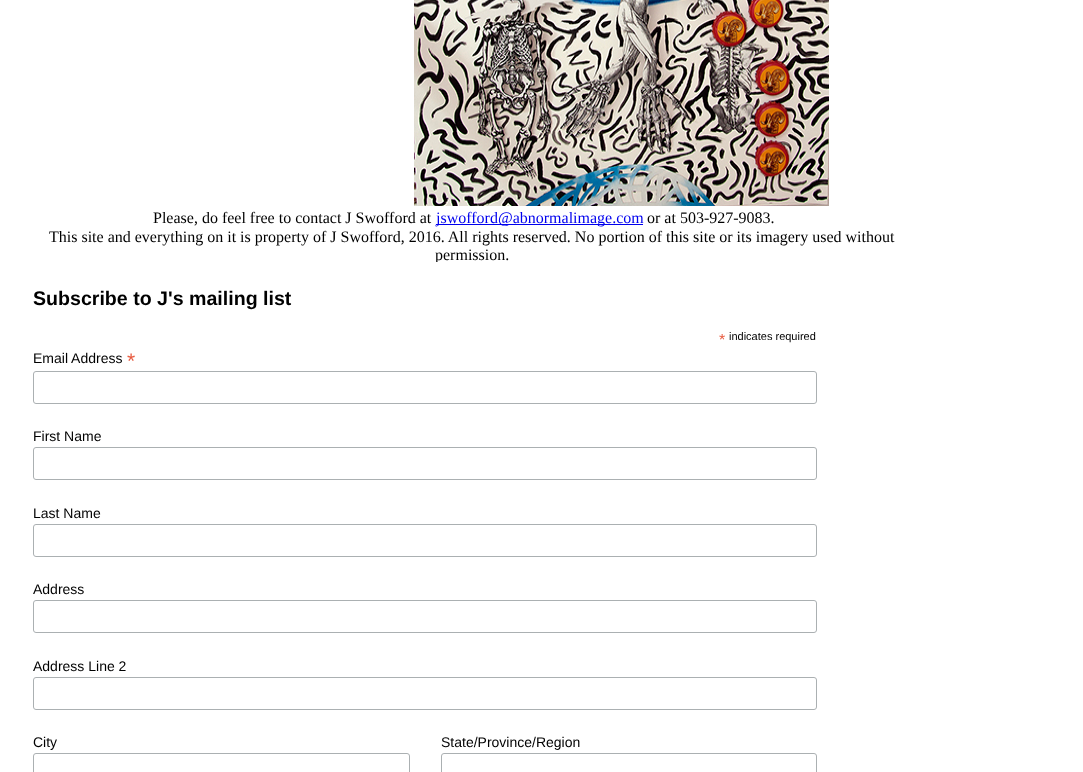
async function draw(canvas) {
  canvas.width = 1083
  canvas.height = 772
  const ctx = canvas.getContext('2d')
  ctx.miterLimit = 4
  ctx.fontKerning = 'normal'
  async function loadImage(src) {
    const img = new Image()
    img.src = src
    await img.decode()
    return img
  }

  ctx.fillStyle = '#fff'
  ctx.fillRect(0, 0, 1083, 772)
  ctx.drawImage(await loadImage('image0.png'), 414, 0, 415, 206)
  ctx.font = '16px Liberation Serif'
  ctx.fillStyle = '#000'
  ctx.fillText('Please, do feel free to contact J Swofford at', 153, 223)
  ctx.fillStyle = '#00e'
  ctx.fillRect(436, 224, 207, 1)
  ctx.fillText('jswofford@abnormalimage.com', 436, 223)
  ctx.fillStyle = '#000'
  ctx.fillText('or at 503-927-9083.', 647, 223)
  ctx.fillText('This site and everything on it is property of J Swofford, 2016. All rights reserved. No portion of this site or its imagery used without', 49, 242)
  ctx.fillText('permission.', 435, 260)
  ctx.fillStyle = '#fff'
  ctx.fillRect(435, 262, 4, 2)
  ctx.font = 'bold 19.6px Liberation Sans'
  ctx.fillStyle = '#000'
  ctx.fillText('Subscribe to J\'s mailing list', 33, 305)
  ctx.font = '16px Liberation Sans'
  ctx.fillStyle = '#e85c41'
  ctx.fillText('*', 719, 345)
  ctx.font = '11px Liberation Sans'
  ctx.fillStyle = '#000'
  ctx.fillText('indicates required', 729, 340)
  ctx.font = '14px Liberation Sans'
  ctx.fillText('Email Address', 33, 363)
  ctx.font = '21px Liberation Sans'
  ctx.fillStyle = '#e85c41'
  ctx.fillText('*', 127, 368)
  ctx.beginPath()
  ctx.roundRect(33.5, 371.5, 783, 32, 2.5)
  ctx.strokeStyle = '#abb0b2'
  ctx.stroke()
  ctx.font = '14px Liberation Sans'
  ctx.fillStyle = '#000'
  ctx.fillText('First Name', 33, 441)
  ctx.beginPath()
  ctx.roundRect(33.5, 447.5, 783, 32, 2.5)
  ctx.stroke()
  ctx.fillText('Last Name', 33, 518)
  ctx.beginPath()
  ctx.roundRect(33.5, 524.5, 783, 32, 2.5)
  ctx.stroke()
  ctx.fillText('Address', 33, 594)
  ctx.beginPath()
  ctx.roundRect(33.5, 600.5, 783, 32, 2.5)
  ctx.stroke()
  ctx.fillText('Address Line 2', 33, 671)
  ctx.beginPath()
  ctx.roundRect(33.5, 677.5, 783, 32, 2.5)
  ctx.stroke()
  ctx.fillText('City', 33, 747)
  ctx.beginPath()
  ctx.roundRect(33.5, 753.5, 376, 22, 2.5)
  ctx.stroke()
  ctx.fillText('State/Province/Region', 441, 747)
  ctx.beginPath()
  ctx.roundRect(441.5, 753.5, 375, 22, 2.5)
  ctx.stroke()
}

draw(document.querySelector('canvas'))
